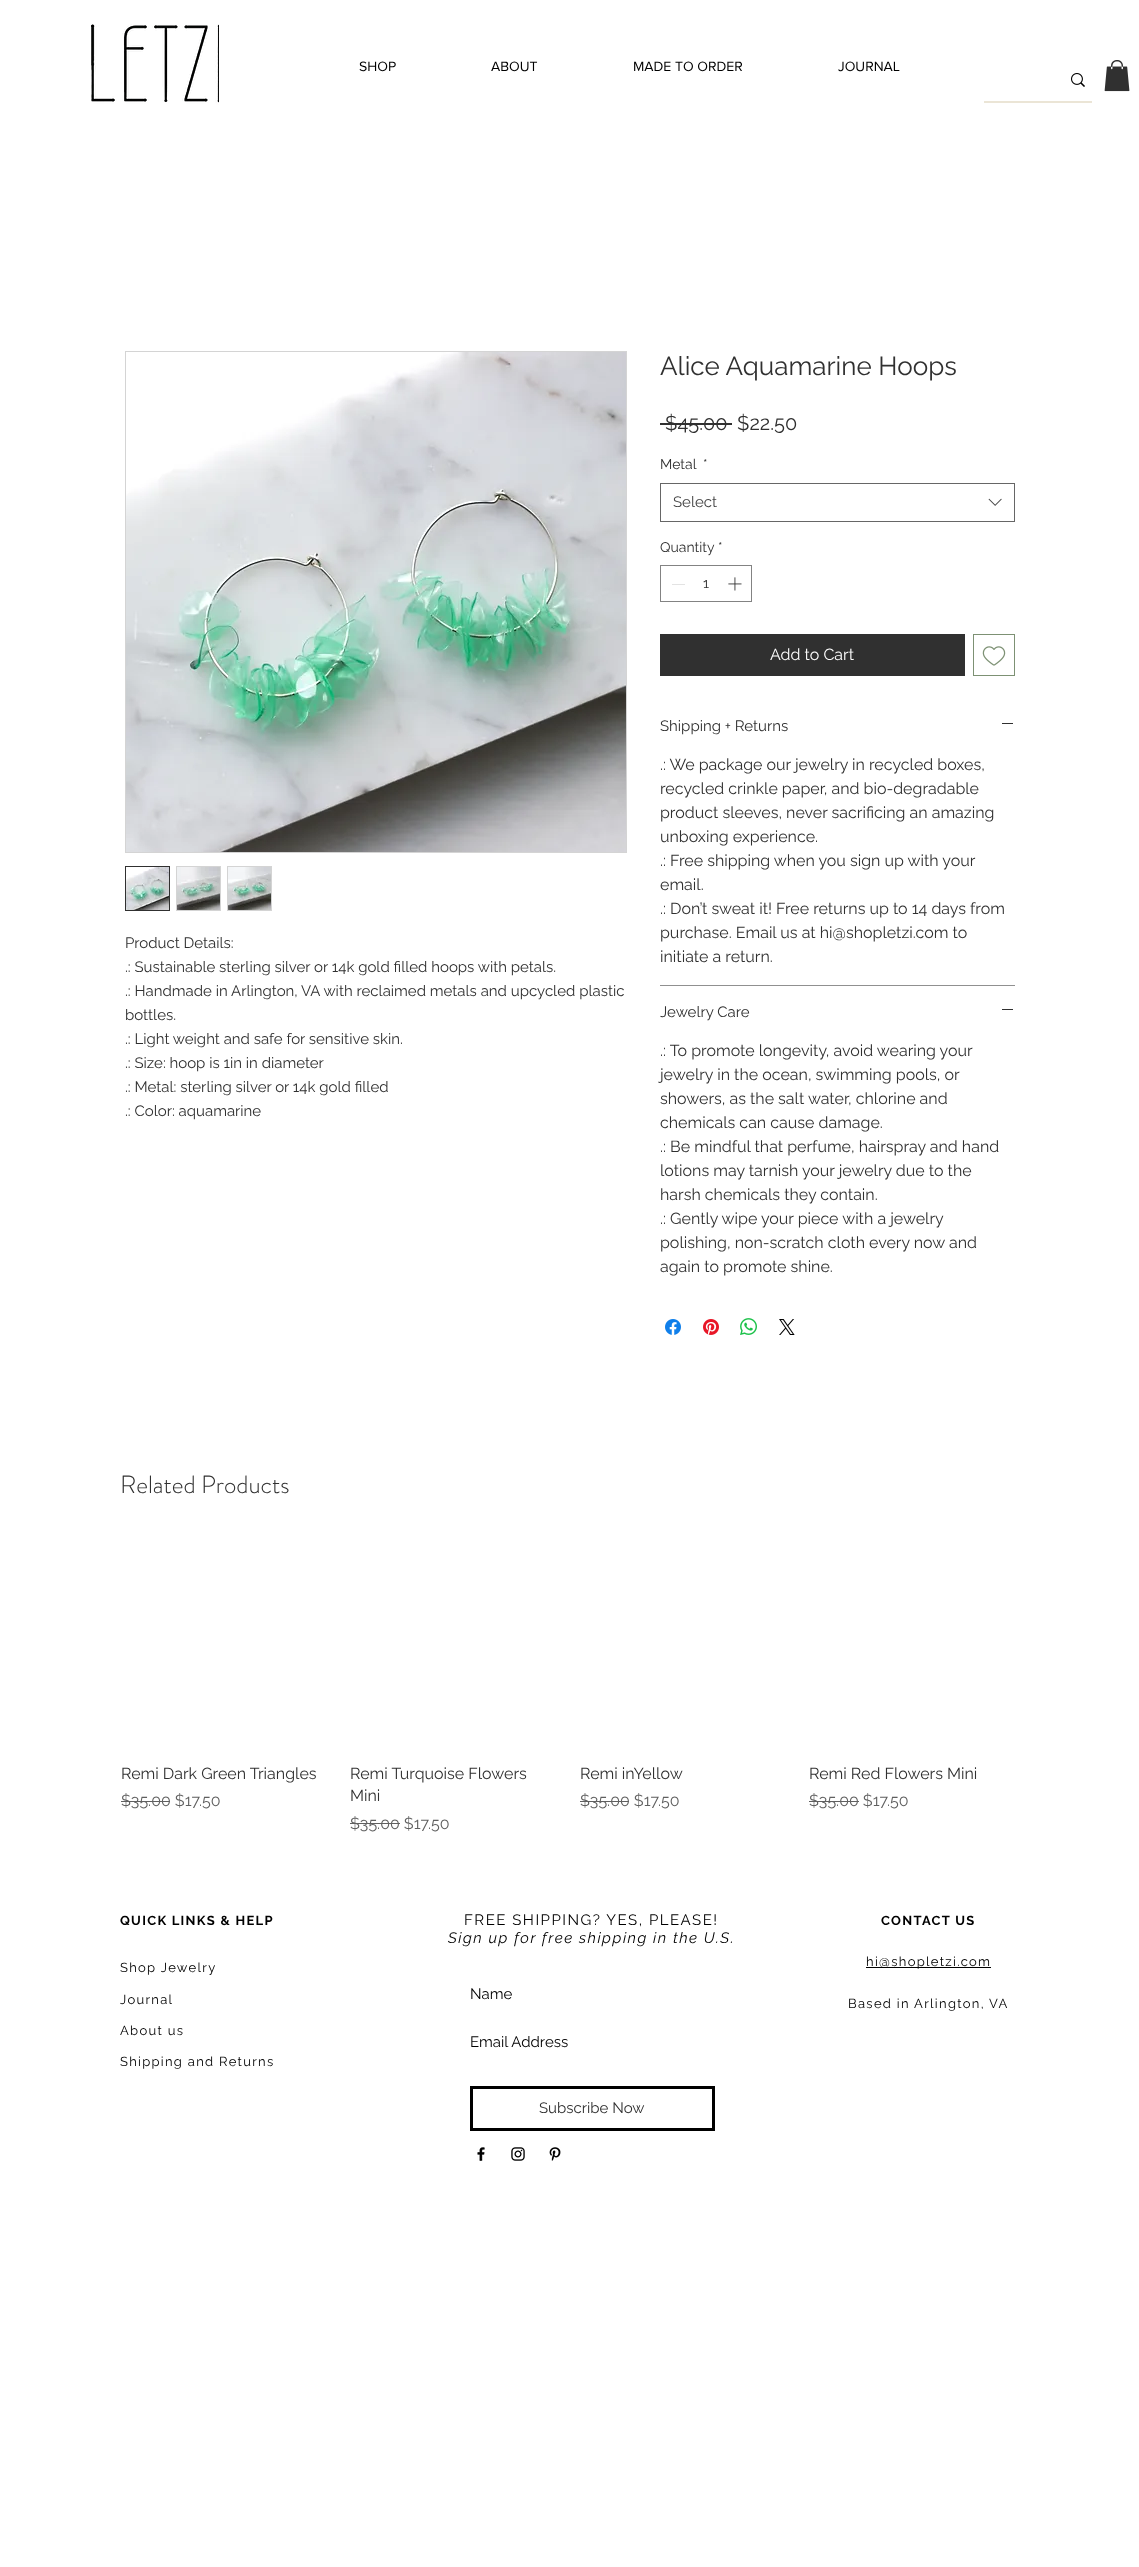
async function draw(canvas) {
  canvas.width = 1139
  canvas.height = 2567
  const ctx = canvas.getContext('2d')
  ctx.miterLimit = 4
  ctx.fontKerning = 'normal'
  async function loadImage(src) {
    const img = new Image()
    img.src = src
    await img.decode()
    return img
  }

  ctx.fillStyle = '#fff'
  ctx.fillRect(0, 0, 1139, 2567)
  ctx.drawImage(await loadImage('image0.png'), 91, 24, 128, 81)
  ctx.drawImage(await loadImage('image1.png'), 91, 24, 128, 79)
  ctx.font = '14px "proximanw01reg"'
  ctx.fillStyle = '#000'
  ctx.fillText('SHOP', 359, 71)
  ctx.fillText('ABOUT', 491, 71)
  ctx.fillText('MADE TO ORDER', 633, 71)
  ctx.fillText('JOURNAL', 838, 71)
  ctx.drawImage(await loadImage('image2.png'), 1104, 60, 26, 32)
  ctx.fillStyle = '#ebe5d6'
  ctx.fillRect(984, 101, 108, 2)
  ctx.drawImage(await loadImage('image3.png'), 1071, 73, 14, 14)
  ctx.strokeStyle = '#d4d4d4'
  ctx.strokeRect(125.5, 351.5, 501, 501)
  ctx.drawImage(await loadImage('image4.png'), 126, 352, 500, 500)
  ctx.strokeStyle = '#303030'
  ctx.strokeRect(125.5, 866.5, 44, 44)
  ctx.drawImage(await loadImage('image5.png'), 126, 867, 43, 43)
  ctx.fillStyle = '#d4d4d4'
  ctx.fillRect(176, 866, 45, 45)
  ctx.drawImage(await loadImage('image6.png'), 177, 867, 43, 43)
  ctx.fillRect(227, 866, 45, 45)
  ctx.drawImage(await loadImage('image7.png'), 228, 867, 43, 43)
  ctx.font = '15px Raleway'
  ctx.fillStyle = '#303030'
  ctx.fillText('Product Details:', 125, 948)
  ctx.fillText('.: Sustainable sterling silver or 14k gold filled hoops with petals.', 125, 972)
  ctx.fillText('.: Handmade in Arlington, VA with reclaimed metals and upcycled plastic', 125, 996)
  ctx.fillText('bottles.', 125, 1020)
  ctx.fillText('.: Light weight and safe for sensitive skin.', 125, 1044)
  ctx.fillText('.: Size: hoop is 1in in diameter', 125, 1068)
  ctx.fillText('.: Metal: sterling silver or 14k gold filled', 125, 1092)
  ctx.fillText('.: Color: aquamarine', 125, 1116)
  ctx.font = '26px Raleway'
  ctx.fillText('Alice Aquamarine Hoops', 660, 375)
  ctx.font = '20px Raleway'
  ctx.fillText('$45.00', 665, 430)
  ctx.fillRect(660, 423, 72, 2)
  ctx.fillText('$22.50', 737, 430)
  ctx.font = '14px Raleway'
  ctx.fillText('Metal', 660, 469)
  ctx.fillText('*', 703, 469)
  ctx.strokeStyle = '#666'
  ctx.strokeRect(660.5, 483.5, 354, 38)
  ctx.font = '15px Raleway'
  ctx.fillStyle = '#444'
  ctx.fillText('Select', 673, 507)
  ctx.drawImage(await loadImage('image8.png'), 988, 498, 14, 8)
  ctx.font = '14px Raleway'
  ctx.fillStyle = '#303030'
  ctx.fillText('Quantity', 660, 552)
  ctx.fillText('*', 718, 552)
  ctx.strokeStyle = '#838383'
  ctx.strokeRect(660.5, 565.5, 91, 36)
  ctx.fillStyle = '#e3e3e3'
  ctx.fillRect(672, 584, 13, 1)
  ctx.fillStyle = '#303030'
  ctx.fillText('1', 703, 588)
  ctx.drawImage(await loadImage('image9.png'), 728, 577, 14, 14)
  ctx.fillRect(660, 634, 305, 42)
  ctx.font = '16px Raleway'
  ctx.fillStyle = '#fff'
  ctx.fillText('Add to Cart', 770, 660)
  ctx.strokeStyle = '#7d9174'
  ctx.strokeRect(973.5, 634.5, 41, 41)
  ctx.drawImage(await loadImage('image10.png'), 982, 646, 24, 20)
  ctx.fillStyle = '#909090'
  ctx.fillRect(660, 985, 355, 1)
  ctx.font = '15px Raleway'
  ctx.fillStyle = '#303030'
  ctx.fillText('Shipping + Returns', 660, 731)
  ctx.fillRect(1002, 723, 11, 1)
  ctx.font = '16px Raleway'
  ctx.fillText('.: We package our jewelry in recycled boxes,', 660, 770)
  ctx.fillText('recycled crinkle paper, and bio-degradable', 660, 794)
  ctx.fillText('product sleeves, never sacrificing an amazing', 660, 818)
  ctx.fillText('unboxing experience.', 660, 842)
  ctx.fillText('.: Free shipping when you sign up with your', 660, 866)
  ctx.fillText('email.', 660, 890)
  ctx.fillText('.: Don’t sweat it! Free returns up to 14 days from', 660, 914)
  ctx.fillText('purchase. Email us at hi@shopletzi.com to', 660, 938)
  ctx.fillText('initiate a return.', 660, 962)
  ctx.font = '15px Raleway'
  ctx.fillText('Jewelry Care', 660, 1017)
  ctx.fillRect(1002, 1009, 11, 1)
  ctx.font = '16px Raleway'
  ctx.fillText('.: To promote longevity, avoid wearing your', 660, 1056)
  ctx.fillText('jewelry in the ocean, swimming pools, or', 660, 1080)
  ctx.fillText('showers, as the salt water, chlorine and', 660, 1104)
  ctx.fillText('chemicals can cause damage.', 660, 1128)
  ctx.fillText('.: Be mindful that perfume, hairspray and hand', 660, 1152)
  ctx.fillText('lotions may tarnish your jewelry due to the', 660, 1176)
  ctx.fillText('harsh chemicals they contain.', 660, 1200)
  ctx.fillText('.: Gently wipe your piece with a jewelry', 660, 1224)
  ctx.fillText('polishing, non-scratch cloth every now and', 660, 1248)
  ctx.fillText('again to promote shine.', 660, 1272)
  ctx.drawImage(await loadImage('image11.png'), 665, 1319, 16, 16)
  ctx.drawImage(await loadImage('image12.png'), 703, 1319, 16, 16)
  ctx.drawImage(await loadImage('image13.png'), 740, 1318, 17, 17)
  ctx.drawImage(await loadImage('image14.png'), 779, 1319, 16, 16)
  ctx.font = '300 25px "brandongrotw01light"'
  ctx.fillText('Related Products', 120, 1493)
  ctx.font = '16px Raleway'
  ctx.fillText('Remi Dark Green Triangles', 121, 1779)
  ctx.fillStyle = '#606060'
  ctx.fillText('$35.00 $17.50', 121, 1806)
  ctx.fillRect(121, 1801, 49, 1)
  ctx.fillStyle = '#303030'
  ctx.fillText('Remi Turquoise Flowers', 350, 1779)
  ctx.fillText('Mini', 350, 1801)
  ctx.fillStyle = '#606060'
  ctx.fillText('$35.00 $17.50', 350, 1829)
  ctx.fillRect(350, 1823, 50, 1)
  ctx.fillStyle = '#303030'
  ctx.fillText('Remi inYellow', 580, 1779)
  ctx.fillStyle = '#606060'
  ctx.fillText('$35.00 $17.50', 580, 1806)
  ctx.fillRect(580, 1801, 49, 1)
  ctx.fillStyle = '#303030'
  ctx.fillText('Remi Red Flowers Mini', 809, 1779)
  ctx.fillStyle = '#606060'
  ctx.fillText('$35.00 $17.50', 809, 1806)
  ctx.fillRect(809, 1801, 50, 1)
  ctx.letterSpacing = '1.3px'
  ctx.font = 'bold 13px Raleway'
  ctx.fillStyle = '#000'
  ctx.fillText('QUICK LINKS & HELP', 120, 1925)
  ctx.font = '13px Raleway'
  ctx.fillText('Shop Jewelry', 120, 1972)
  ctx.fillText('Journal', 120, 2004)
  ctx.fillText('About us', 120, 2035)
  ctx.fillText('Shipping and Returns', 120, 2066)
  ctx.letterSpacing = '1.5px'
  ctx.font = '15px Raleway'
  ctx.fillText('FREE SHIPPING? YES, PLEASE!', 464, 1925)
  ctx.font = 'italic 15px Raleway'
  ctx.fillText('Sign up for free shipping in the U.S.', 448, 1943)
  ctx.letterSpacing = '0px'
  ctx.font = '15px Raleway'
  ctx.fillText('Name', 470, 1999)
  ctx.fillText('Email Address', 470, 2047)
  ctx.strokeStyle = '#000'
  ctx.lineWidth = 3
  ctx.strokeRect(471.5, 2087.5, 242, 42)
  ctx.fillStyle = '#303030'
  ctx.fillText('Subscribe Now', 539, 2113)
  ctx.drawImage(await loadImage('image15.png'), 477, 2147, 8, 14)
  ctx.drawImage(await loadImage('image16.png'), 511, 2147, 14, 14)
  ctx.drawImage(await loadImage('image17.png'), 549, 2147, 12, 14)
  ctx.letterSpacing = '1.3px'
  ctx.font = 'bold 13px Raleway'
  ctx.fillStyle = '#000'
  ctx.fillText('CONTACT US', 881, 1925)
  ctx.fillRect(866, 1967, 125, 1)
  ctx.font = '13px Raleway'
  ctx.fillText('hi@shopletzi.com', 866, 1966)
  ctx.fillText('Based in Arlington, VA', 848, 2008)
}

draw(document.querySelector('canvas'))
